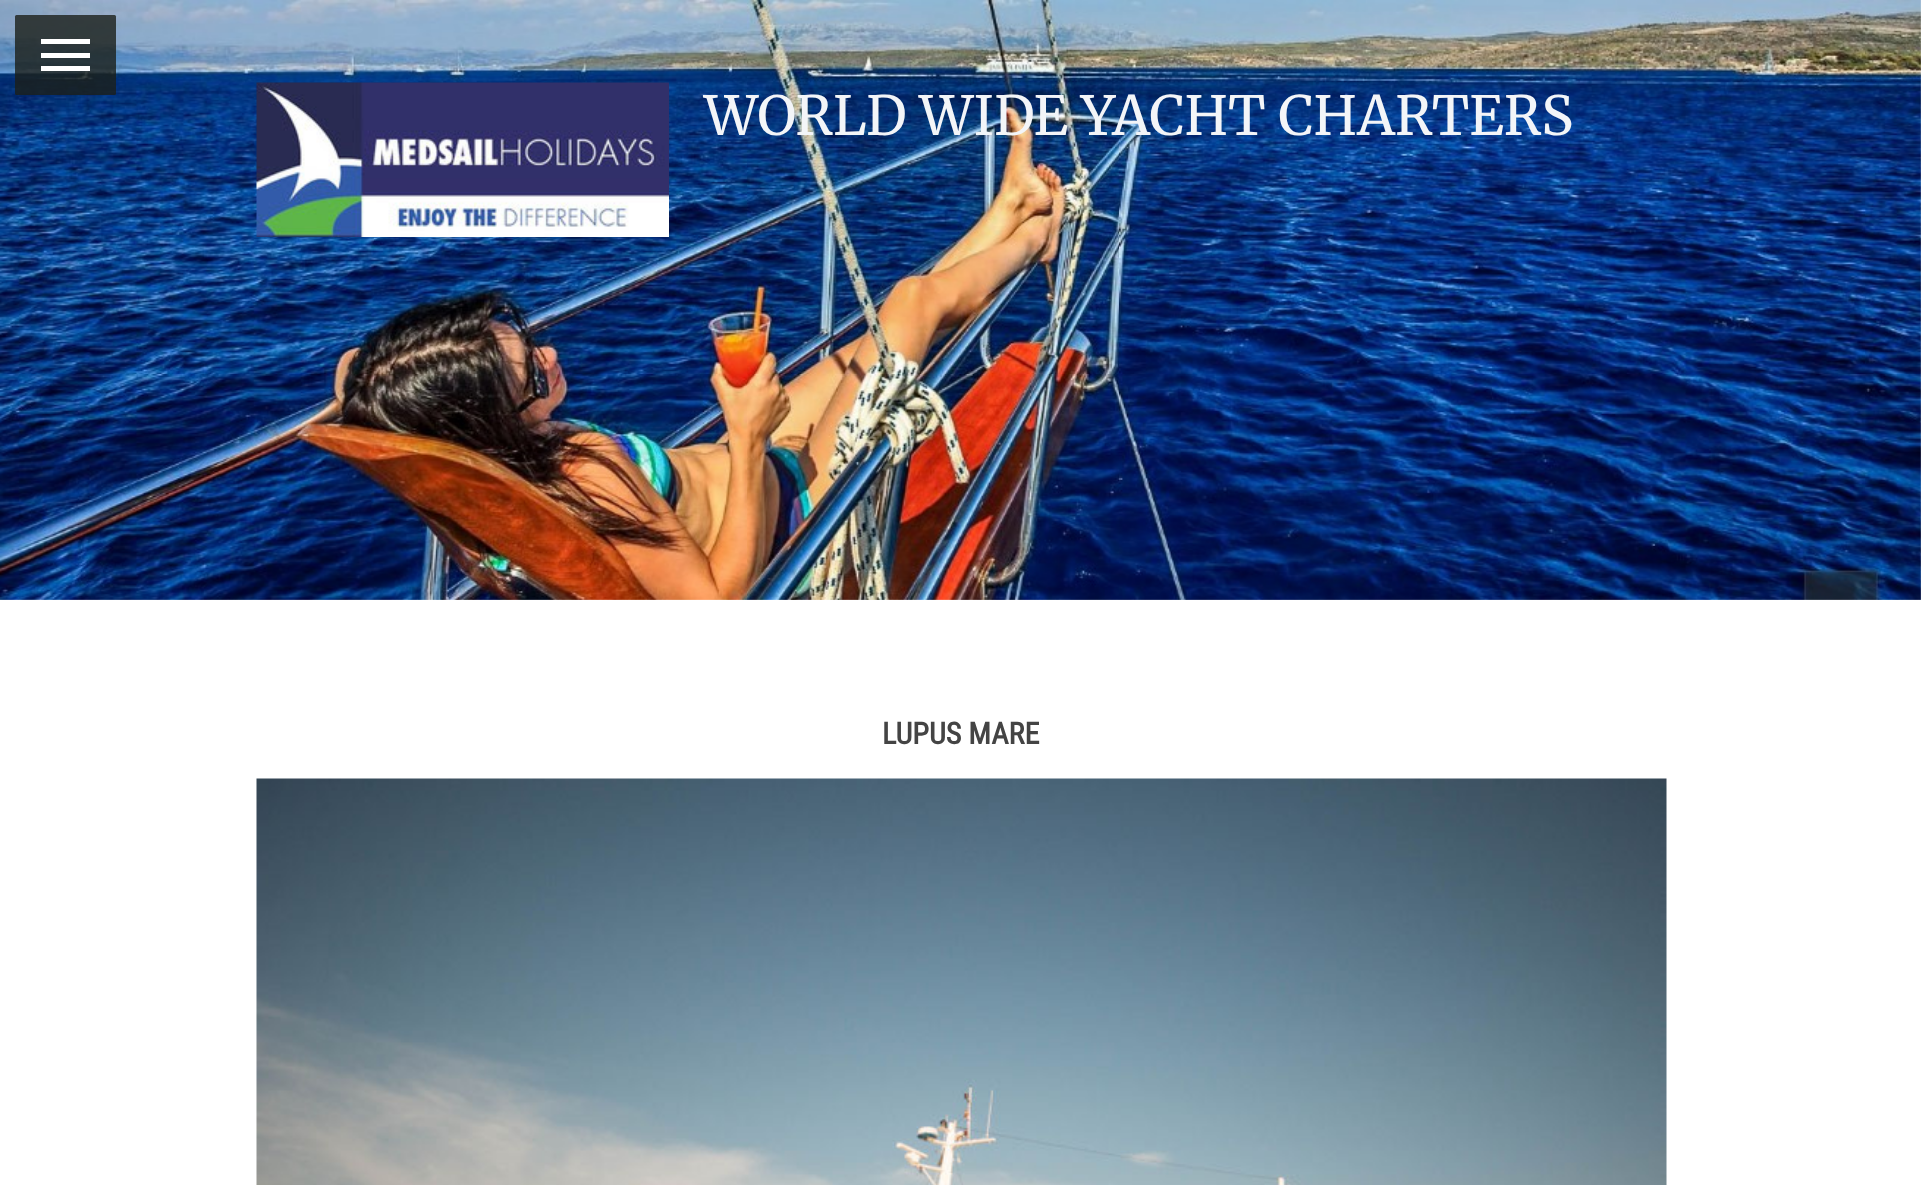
async function draw(canvas) {
  canvas.width = 1921
  canvas.height = 1185
  const ctx = canvas.getContext('2d')
  ctx.miterLimit = 4
  ctx.fontKerning = 'normal'
  async function loadImage(src) {
    const img = new Image()
    img.src = src
    await img.decode()
    return img
  }

  ctx.fillStyle = '#fff'
  ctx.fillRect(0, 0, 1921, 1185)
  ctx.drawImage(await loadImage('image0.png'), 0, 0, 1921, 600)
  ctx.fillStyle = '#1c1f19cc'
  ctx.beginPath()
  ctx.roundRect(15, 15, 101, 80, 1.5)
  ctx.fill()
  ctx.fillStyle = '#fff'
  ctx.fillRect(41, 53, 49, 5)
  ctx.fillRect(41, 39, 49, 5)
  ctx.fillRect(41, 66, 49, 5)
  ctx.drawImage(await loadImage('image1.png'), 256, 82, 413, 155)
  ctx.font = '300 54px Merriweather'
  ctx.fillStyle = '#f3f5f8'
  ctx.fillText('WORLD WIDE YACHT CHARTERS', 704, 135)
  ctx.font = 'bold 30px Roboto Condensed'
  ctx.fillStyle = '#444'
  ctx.fillText('LUPUS MARE', 882, 744)
  ctx.drawImage(await loadImage('image2.png'), 256, 778, 1411, 407)
}

draw(document.querySelector('canvas'))
